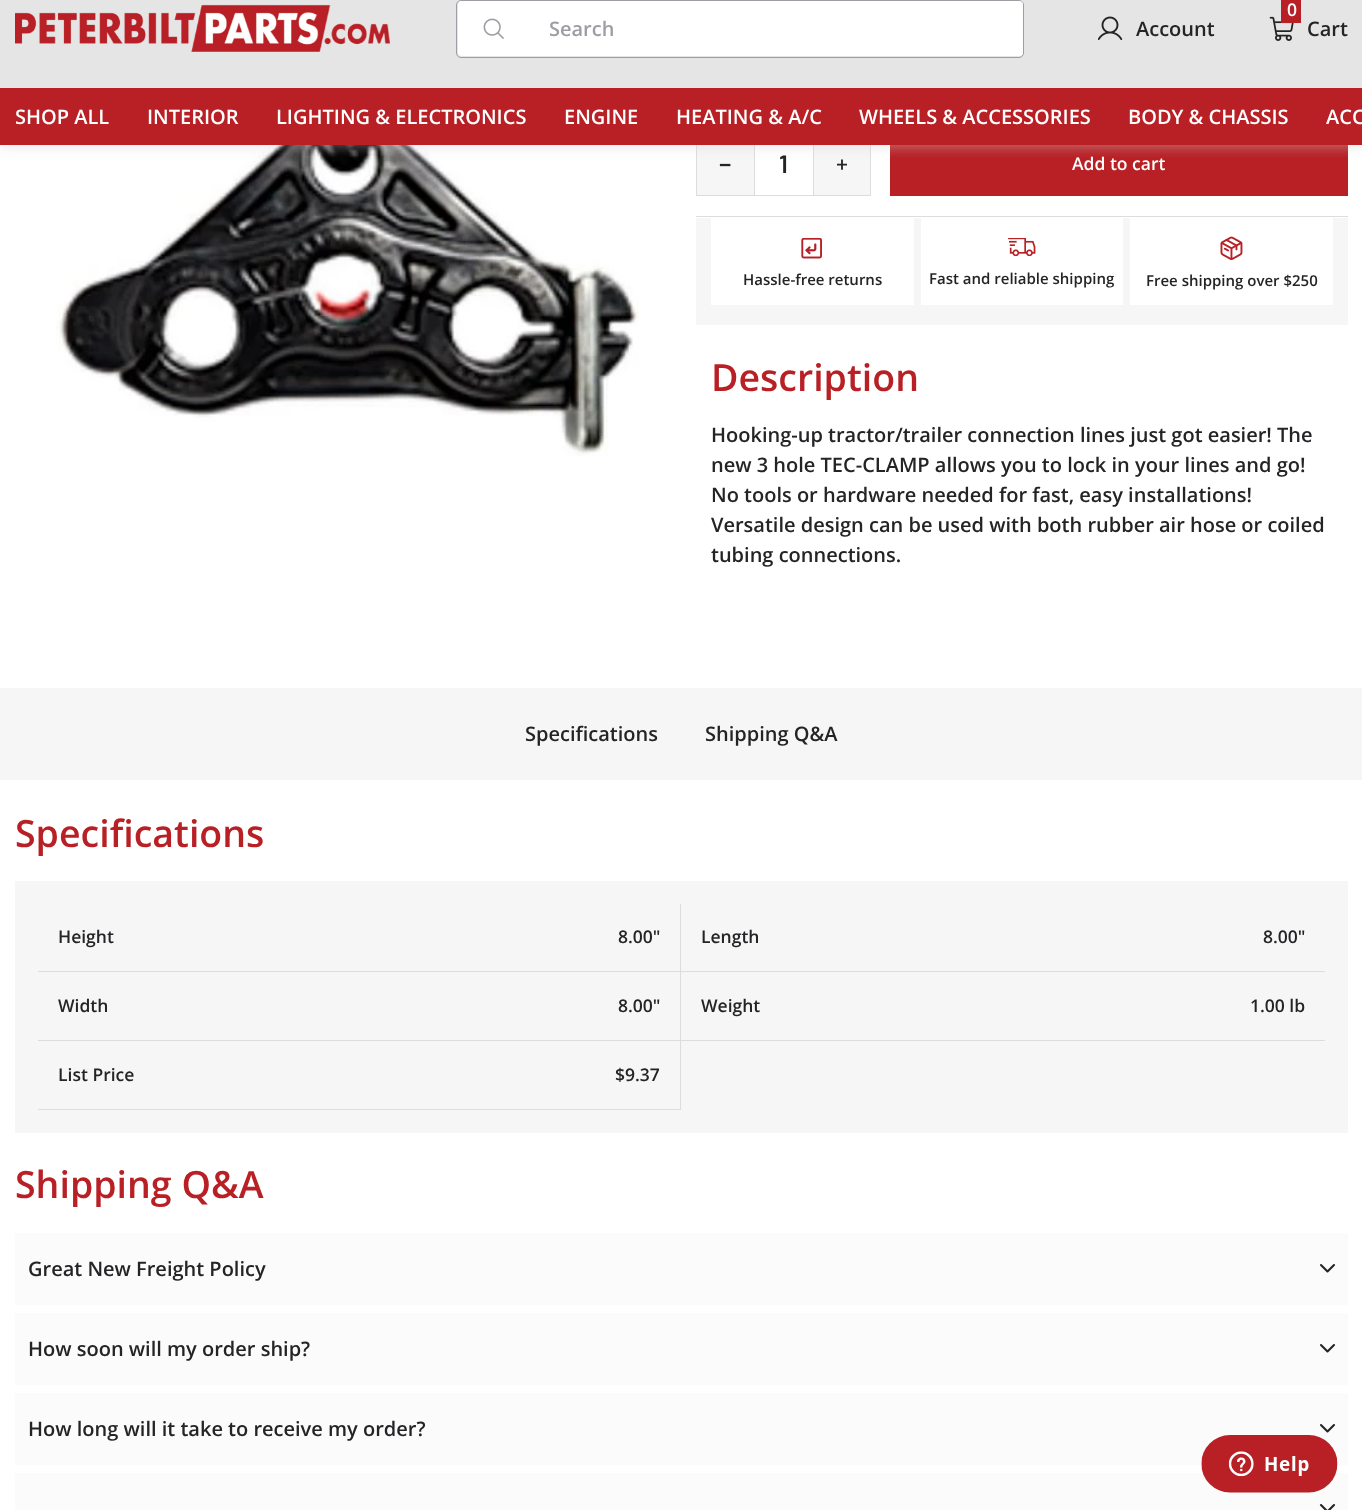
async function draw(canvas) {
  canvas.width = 1362
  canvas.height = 1510
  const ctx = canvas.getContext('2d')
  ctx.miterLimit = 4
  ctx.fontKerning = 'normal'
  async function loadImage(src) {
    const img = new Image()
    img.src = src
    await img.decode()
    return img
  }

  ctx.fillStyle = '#fff'
  ctx.fillRect(0, 0, 1362, 1510)
  ctx.drawImage(await loadImage('image4.png'), 56, 145, 583, 311)
  ctx.fillStyle = '#f6f6f6'
  ctx.fillRect(697, 145, 173, 50)
  ctx.strokeStyle = '#ddd'
  ctx.strokeRect(696.5, 131.5, 174, 64)
  ctx.fillStyle = '#fff'
  ctx.fillRect(755, 145, 58, 50)
  ctx.fillStyle = '#ddd'
  ctx.fillRect(813, 145, 1, 50)
  ctx.fillRect(754, 145, 1, 50)
  ctx.fillStyle = '#b82025'
  ctx.fillRect(890, 145, 458, 51)
  ctx.fillStyle = '#d0d0d066'
  ctx.filter = 'blur(6px)'
  ctx.beginPath()
  ctx.rect(0, 3, 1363, 145)
  ctx.fill()
  ctx.filter = 'none'
  ctx.fillStyle = '#e6e5e5'
  ctx.fillRect(0, 0, 1362, 88)
  ctx.drawImage(await loadImage('image0.png'), 15, 4, 375, 48)
  ctx.beginPath()
  ctx.roundRect(456.5, 0.5, 567, 57, 4.5)
  ctx.strokeStyle = '#9d9da4'
  ctx.stroke()
  ctx.fillStyle = '#fff'
  ctx.beginPath()
  ctx.roundRect(458, 1, 72, 55, [4, 0, 0, 4])
  ctx.fill()
  ctx.drawImage(await loadImage('image1.png'), 483, 18, 21, 21)
  ctx.beginPath()
  ctx.roundRect(530, 1, 493, 55, [0, 4, 4, 0])
  ctx.fill()
  ctx.font = '600 20px Open Sans'
  ctx.fillStyle = '#9d9da4'
  ctx.fillText('Search', 549, 36)
  ctx.drawImage(await loadImage('image2.png'), 1098, 16, 25, 24)
  ctx.fillStyle = '#242427'
  ctx.fillText('Account', 1136, 36)
  ctx.drawImage(await loadImage('image3.png'), 1269, 16, 25, 25)
  ctx.fillStyle = '#b82025'
  ctx.fillRect(1281, 0, 20, 23)
  ctx.font = '600 17.5px Open Sans'
  ctx.fillStyle = '#fff'
  ctx.fillText('0', 1287, 16)
  ctx.font = '600 20px Open Sans'
  ctx.fillStyle = '#242427'
  ctx.fillText('Cart', 1307, 36)
  ctx.fillStyle = '#b82025'
  ctx.fillRect(0, 88, 1362, 57)
  ctx.fillStyle = '#fff'
  ctx.fillText('SHOP ALL', 15, 124)
  ctx.fillText('INTERIOR', 147, 124)
  ctx.fillText('LIGHTING & ELECTRONICS', 276, 124)
  ctx.fillText('ENGINE', 564, 124)
  ctx.fillText('HEATING & A/C', 676, 124)
  ctx.fillText('WHEELS & ACCESSORIES', 859, 124)
  ctx.fillText('BODY & CHASSIS', 1128, 124)
  ctx.fillText('ACC', 1326, 124)
  ctx.font = 'bold 21px Liberation Sans'
  ctx.fillStyle = '#242427'
  ctx.fillText('−', 719, 172)
  ctx.font = '600 25px Barlow'
  ctx.fillText('1', 779, 173)
  ctx.font = '600 21px Open Sans'
  ctx.fillText('+', 836, 172)
  ctx.font = '600 17.5px Open Sans'
  ctx.fillStyle = '#fff'
  ctx.fillText('Add to cart', 1072, 170)
  ctx.fillStyle = '#ddd'
  ctx.fillRect(696, 216, 652, 1)
  ctx.fillStyle = '#f6f6f6'
  ctx.fillRect(696, 218, 652, 107)
  ctx.fillStyle = '#fff'
  ctx.fillRect(711, 218, 203, 87)
  ctx.drawImage(await loadImage('image5.png'), 801, 238, 21, 21)
  ctx.font = '600 15px Open Sans'
  ctx.fillStyle = '#242427'
  ctx.fillText('Hassle-free returns', 743, 285)
  ctx.fillStyle = '#fff'
  ctx.fillRect(921, 218, 202, 87)
  ctx.drawImage(await loadImage('image6.png'), 1008, 238, 28, 18)
  ctx.fillStyle = '#242427'
  ctx.fillText('Fast and reliable shipping', 929, 284)
  ctx.fillStyle = '#fff'
  ctx.fillRect(1130, 218, 203, 87)
  ctx.drawImage(await loadImage('image7.png'), 1220, 236, 23, 24)
  ctx.fillStyle = '#242427'
  ctx.fillText('Free shipping over $250', 1146, 286)
  ctx.font = '600 37.5px Open Sans'
  ctx.fillStyle = '#b82025'
  ctx.fillText('Description', 711, 391)
  ctx.font = '600 20px Open Sans'
  ctx.fillStyle = '#242427'
  ctx.fillText('Hooking-up tractor/trailer connection lines just got easier! The', 711, 442)
  ctx.fillText('new 3 hole TEC-CLAMP allows you to lock in your lines and go!', 711, 472)
  ctx.fillText('No tools or hardware needed for fast, easy installations!', 711, 502)
  ctx.fillText('Versatile design can be used with both rubber air hose or coiled', 711, 532)
  ctx.fillText('tubing connections.', 711, 562)
  ctx.fillStyle = '#f6f6f6'
  ctx.fillRect(0, 688, 1362, 92)
  ctx.fillStyle = '#242427'
  ctx.fillText('Specifications', 525, 741)
  ctx.fillText('Shipping Q&A', 705, 741)
  ctx.font = '600 37.5px Open Sans'
  ctx.fillStyle = '#b82025'
  ctx.fillText('Specifications', 15, 847)
  ctx.fillStyle = '#f6f6f6'
  ctx.fillRect(15, 881, 1333, 252)
  ctx.fillStyle = '#ddd'
  ctx.fillRect(680, 904, 1, 206)
  ctx.fillRect(38, 971, 1287, 1)
  ctx.font = '600 17.5px Open Sans'
  ctx.fillStyle = '#242427'
  ctx.fillText('Height', 58, 943)
  ctx.fillText('8.00"', 618, 943)
  ctx.fillText('Length', 701, 943)
  ctx.fillText('8.00"', 1263, 943)
  ctx.fillStyle = '#ddd'
  ctx.fillRect(38, 1040, 1287, 1)
  ctx.fillStyle = '#242427'
  ctx.fillText('Width', 58, 1012)
  ctx.fillText('8.00"', 618, 1012)
  ctx.fillText('Weight', 701, 1012)
  ctx.fillText('1.00 lb', 1250, 1012)
  ctx.fillStyle = '#ddd'
  ctx.fillRect(38, 1109, 643, 1)
  ctx.fillStyle = '#242427'
  ctx.fillText('List Price', 58, 1081)
  ctx.fillText('$9.37', 615, 1081)
  ctx.font = '600 37.5px Open Sans'
  ctx.fillStyle = '#b82025'
  ctx.fillText('Shipping Q&A', 15, 1198)
  ctx.fillStyle = '#fbfbfb'
  ctx.fillRect(15, 1233, 1333, 72)
  ctx.font = '600 20px Open Sans'
  ctx.fillStyle = '#242427'
  ctx.fillText('Great New Freight Policy', 28, 1276)
  ctx.beginPath()
  ctx.moveTo(1321, 1265)
  ctx.lineTo(1327.5, 1271.5)
  ctx.lineTo(1334, 1265)
  ctx.strokeStyle = '#242427'
  ctx.lineWidth = 2.1
  ctx.lineCap = 'round'
  ctx.lineJoin = 'round'
  ctx.stroke()
  ctx.fillStyle = '#fbfbfb'
  ctx.fillRect(15, 1313, 1333, 72)
  ctx.fillStyle = '#242427'
  ctx.fillText('How soon will my order ship?', 28, 1356)
  ctx.beginPath()
  ctx.moveTo(1321, 1345)
  ctx.lineTo(1327.5, 1351.5)
  ctx.lineTo(1334, 1345)
  ctx.stroke()
  ctx.fillStyle = '#fbfbfb'
  ctx.fillRect(15, 1393, 1333, 72)
  ctx.fillStyle = '#242427'
  ctx.fillText('How long will it take to receive my order?', 28, 1436)
  ctx.beginPath()
  ctx.moveTo(1321, 1425)
  ctx.lineTo(1327.5, 1431.5)
  ctx.lineTo(1334, 1425)
  ctx.stroke()
  ctx.fillStyle = '#fbfbfb'
  ctx.fillRect(15, 1473, 1333, 37)
  ctx.beginPath()
  ctx.moveTo(1321, 1505)
  ctx.lineTo(1327.5, 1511.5)
  ctx.lineTo(1334, 1505)
  ctx.stroke()
  ctx.drawImage(await loadImage('image8.png'), 1201, 1435, 137, 58)
}

draw(document.querySelector('canvas'))
